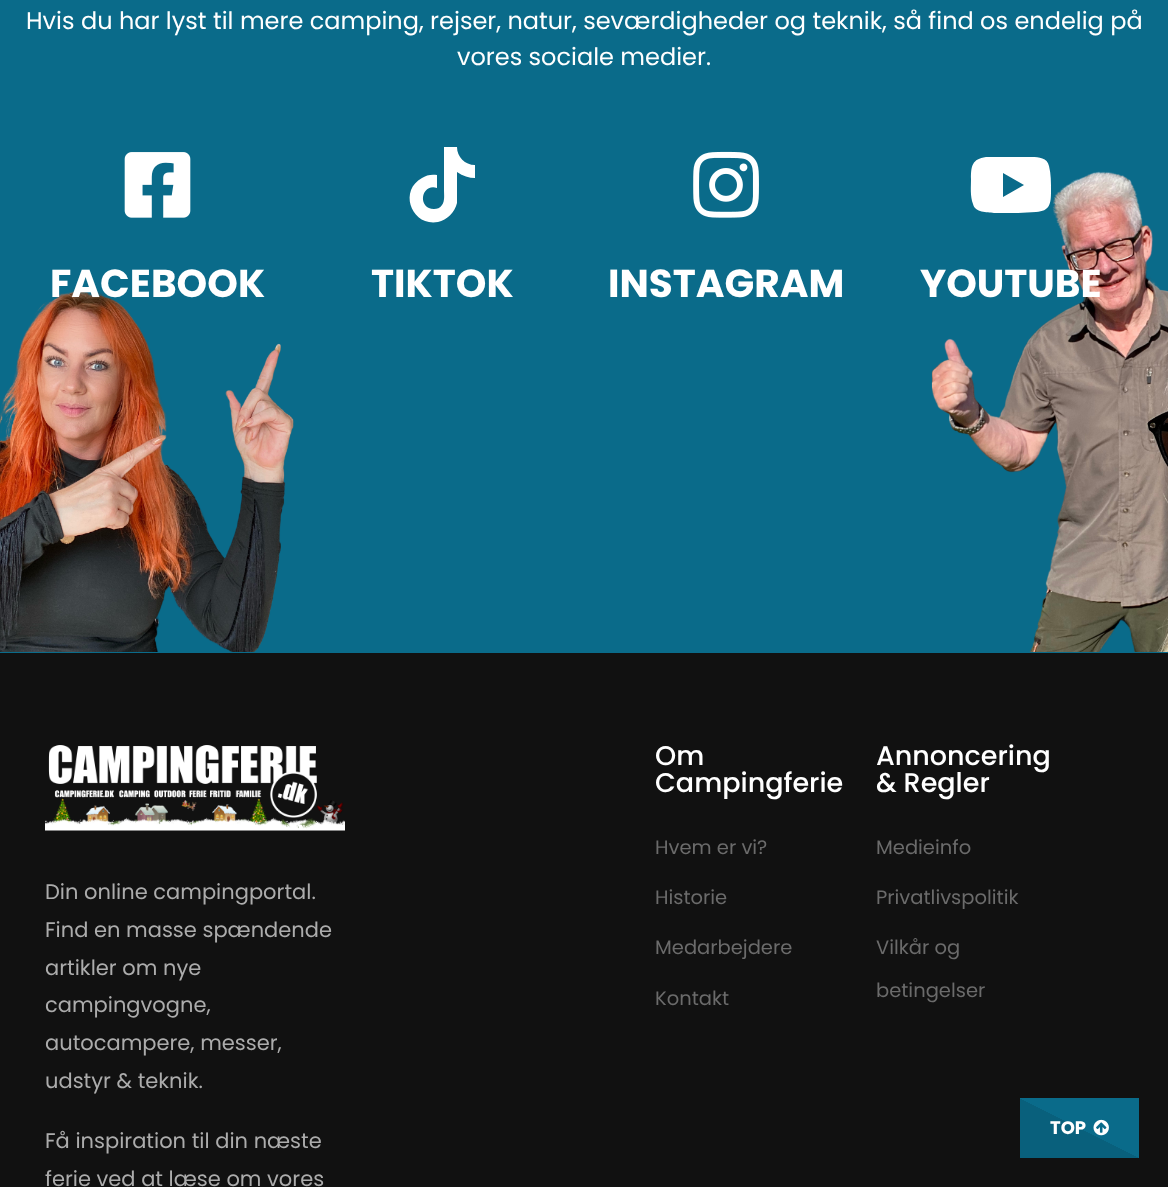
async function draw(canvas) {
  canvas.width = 1168
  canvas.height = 1187
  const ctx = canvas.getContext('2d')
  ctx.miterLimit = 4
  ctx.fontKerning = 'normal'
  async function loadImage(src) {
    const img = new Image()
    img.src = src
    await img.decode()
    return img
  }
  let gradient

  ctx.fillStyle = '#0a6b8a'
  ctx.fillRect(0, 0, 1168, 1187)
  ctx.drawImage(await loadImage('image0.png'), 0, 171, 1168, 481)
  ctx.font = '24px Poppins'
  ctx.fillStyle = '#fff'
  ctx.fillText('Hvis du har lyst til mere camping, rejser, natur, seværdigheder og teknik, så find os endelig på', 26, 29)
  ctx.fillText('vores sociale medier.', 457, 65)
  ctx.drawImage(await loadImage('image1.png'), 124, 152, 67, 66)
  ctx.font = 'bold 39px Poppins'
  ctx.fillText('FACEBOOK', 50, 297)
  ctx.beginPath()
  ctx.moveTo(475, 178)
  ctx.bezierCurveTo(469, 178, 463, 176, 457, 172)
  ctx.lineTo(457, 203)
  ctx.bezierCurveTo(455, 212, 447, 220, 438, 222)
  ctx.bezierCurveTo(412, 227, 398, 191, 422, 178)
  ctx.bezierCurveTo(426, 175, 432, 174, 437, 175)
  ctx.lineTo(437, 188)
  ctx.bezierCurveTo(421, 183, 417, 209, 434, 209)
  ctx.bezierCurveTo(437, 209, 440, 208, 442, 205)
  ctx.bezierCurveTo(445, 201, 444, 195, 444, 190)
  ctx.lineTo(444, 147)
  ctx.lineTo(457, 147)
  ctx.bezierCurveTo(457, 157, 465, 165, 475, 165)
  ctx.closePath()
  ctx.fill()
  ctx.fillText('TIKTOK', 371, 297)
  ctx.drawImage(await loadImage('image2.png'), 693, 151, 66, 67)
  ctx.fillText('INSTAGRAM', 608, 297)
  ctx.beginPath()
  ctx.moveTo(1049, 166)
  ctx.bezierCurveTo(1051, 174, 1051, 182, 1051, 191)
  ctx.bezierCurveTo(1051, 204, 1050, 211, 1036, 212)
  ctx.lineTo(1018, 213)
  ctx.lineTo(994, 213)
  ctx.bezierCurveTo(987, 212, 975, 213, 973, 204)
  ctx.bezierCurveTo(970, 196, 971, 187, 971, 179)
  ctx.bezierCurveTo(971, 166, 972, 159, 986, 157)
  ctx.lineTo(1004, 157)
  ctx.lineTo(1028, 157)
  ctx.bezierCurveTo(1035, 157, 1047, 156, 1049, 166)
  ctx.closePath()
  ctx.moveTo(1003, 197)
  ctx.lineTo(1024, 185)
  ctx.lineTo(1003, 173)
  ctx.closePath()
  ctx.fill()
  ctx.fillText('YOUTUBE', 920, 297)
  ctx.fillStyle = '#111'
  ctx.fillRect(0, 653, 1168, 534)
  ctx.drawImage(await loadImage('image3.png'), 45, 745, 300, 86)
  ctx.font = '21px Poppins'
  ctx.fillStyle = '#acacac'
  ctx.fillText('Din online campingportal.', 45, 899)
  ctx.fillText('Find en masse spændende', 45, 937)
  ctx.fillText('artikler om nye', 45, 975)
  ctx.fillText('campingvogne,', 45, 1012)
  ctx.fillText('autocampere, messer,', 45, 1050)
  ctx.fillText('udstyr & teknik.', 45, 1088)
  ctx.fillText('Få inspiration til din næste', 45, 1148)
  ctx.fillText('ferie ved at læse om vores', 45, 1186)
  ctx.font = '500 27px Poppins'
  ctx.fillStyle = '#fff'
  ctx.fillText('Om', 655, 765)
  ctx.fillText('Campingferie', 655, 792)
  ctx.font = '19.5px Poppins'
  ctx.fillStyle = '#6b6b6b'
  ctx.fillText('Hvem er vi?', 655, 854)
  ctx.fillText('Historie', 655, 904)
  ctx.fillText('Medarbejdere', 655, 954)
  ctx.fillText('Kontakt', 655, 1005)
  ctx.font = '500 27px Poppins'
  ctx.fillStyle = '#fff'
  ctx.fillText('Annoncering', 876, 765)
  ctx.fillText('& Regler', 876, 792)
  ctx.font = '19.5px Poppins'
  ctx.fillStyle = '#6b6b6b'
  ctx.fillText('Medieinfo', 876, 854)
  ctx.fillText('Privatlivspolitik', 876, 904)
  ctx.fillText('Vilkår og', 876, 954)
  ctx.fillText('betingelser', 876, 997)
  gradient = ctx.createLinearGradient(1103, 1080, 1055, 1176)
  gradient.addColorStop(0.5, '#0a6b8a')
  gradient.addColorStop(0.5, '#09607c')
  ctx.fillStyle = gradient
  ctx.fillRect(1020, 1098, 119, 60)
  ctx.font = 'bold 18px Poppins'
  ctx.fillStyle = '#fff'
  ctx.fillText('TOP', 1050, 1134)
  ctx.drawImage(await loadImage('image4.png'), 1093, 1119, 16, 17)
}

draw(document.querySelector('canvas'))
